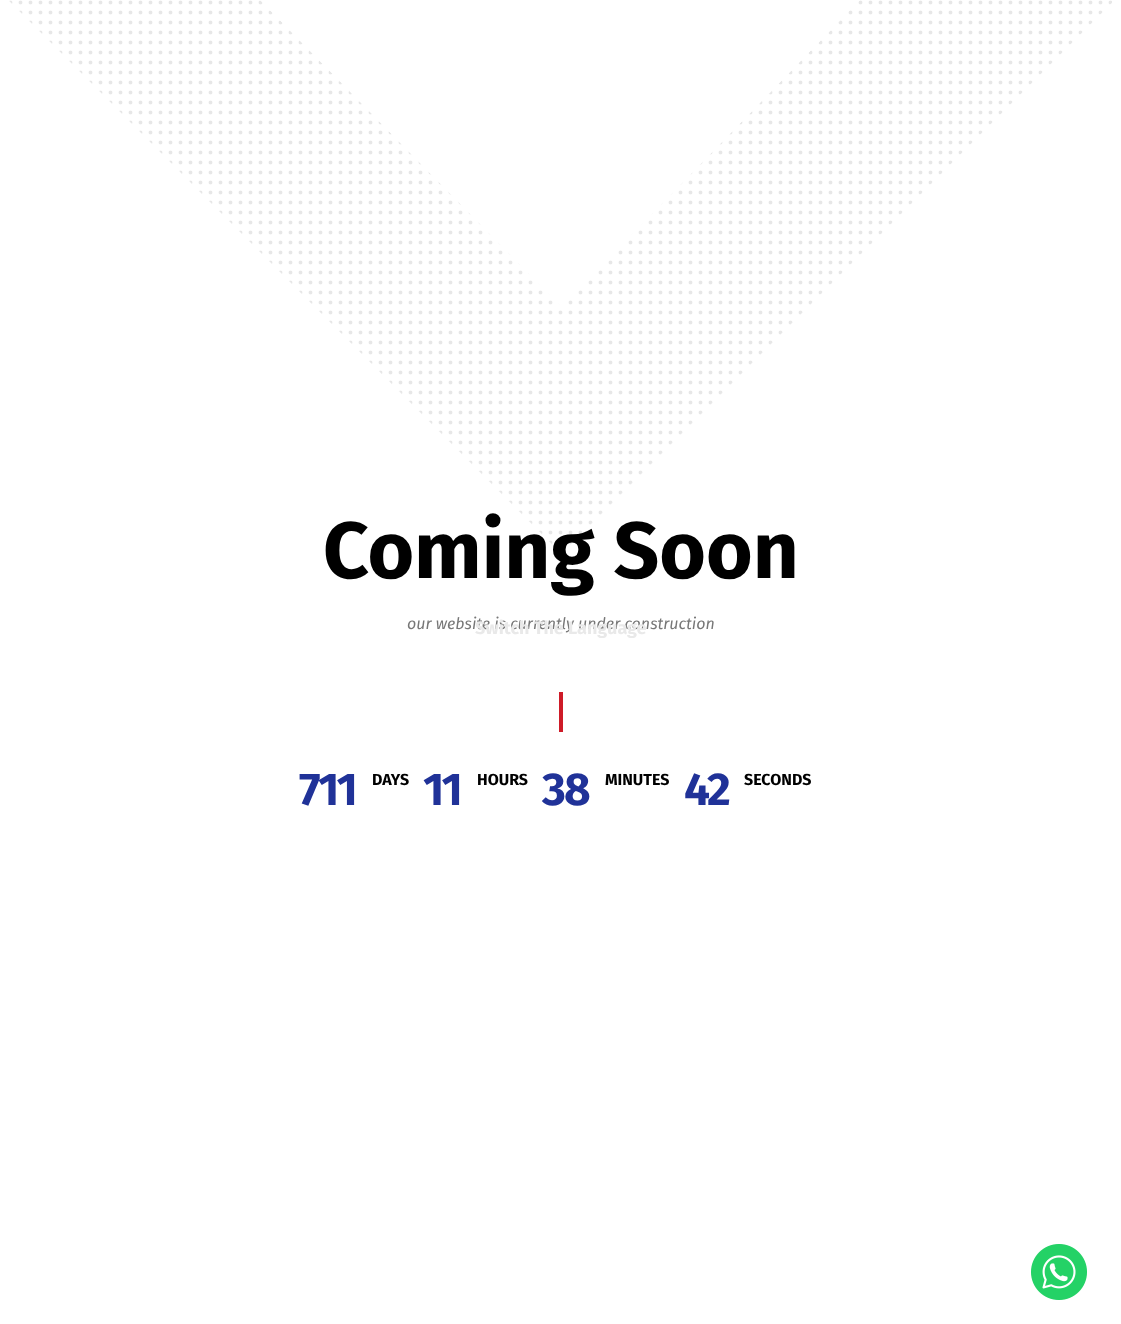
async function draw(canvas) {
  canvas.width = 1121
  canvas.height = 1324
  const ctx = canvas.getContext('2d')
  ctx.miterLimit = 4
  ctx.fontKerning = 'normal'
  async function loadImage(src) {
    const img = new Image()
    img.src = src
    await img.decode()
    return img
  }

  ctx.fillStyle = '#fff'
  ctx.fillRect(0, 0, 1121, 1324)
  ctx.drawImage(await loadImage('image0.png'), 9, 0, 1103, 554)
  ctx.font = 'bold 80px Fira Sans'
  ctx.fillStyle = '#000'
  ctx.fillText('Coming Soon', 323, 578)
  ctx.font = 'italic 16px Fira Sans'
  ctx.fillStyle = '#777'
  ctx.fillText('our website is currently under construction', 407, 629)
  ctx.fillStyle = '#ce1b28'
  ctx.fillRect(559, 692, 4, 40)
  ctx.letterSpacing = '-2px'
  ctx.font = 'bold 46px Fira Sans'
  ctx.fillStyle = '#203298'
  ctx.fillText('711', 299, 805)
  ctx.letterSpacing = '0px'
  ctx.font = 'bold 16px Fira Sans'
  ctx.fillStyle = '#000'
  ctx.fillText('DAYS', 372, 785)
  ctx.letterSpacing = '-2px'
  ctx.font = 'bold 46px Fira Sans'
  ctx.fillStyle = '#203298'
  ctx.fillText('11', 423, 805)
  ctx.letterSpacing = '0px'
  ctx.font = 'bold 16px Fira Sans'
  ctx.fillStyle = '#000'
  ctx.fillText('HOURS', 477, 785)
  ctx.letterSpacing = '-2px'
  ctx.font = 'bold 46px Fira Sans'
  ctx.fillStyle = '#203298'
  ctx.fillText('38', 542, 805)
  ctx.letterSpacing = '0px'
  ctx.font = 'bold 16px Fira Sans'
  ctx.fillStyle = '#000'
  ctx.fillText('MINUTES', 605, 785)
  ctx.letterSpacing = '-2px'
  ctx.font = 'bold 46px Fira Sans'
  ctx.fillStyle = '#203298'
  ctx.fillText('42', 684, 805)
  ctx.letterSpacing = '0px'
  ctx.font = 'bold 16px Fira Sans'
  ctx.fillStyle = '#000'
  ctx.fillText('SECONDS', 744, 785)
  ctx.font = 'bold 18px Fira Sans'
  ctx.fillStyle = '#e9e9e9'
  ctx.fillText('Switch The Language', 475, 634)
  ctx.drawImage(await loadImage('image1.png'), 1031, 1244, 56, 56)
}

draw(document.querySelector('canvas'))
